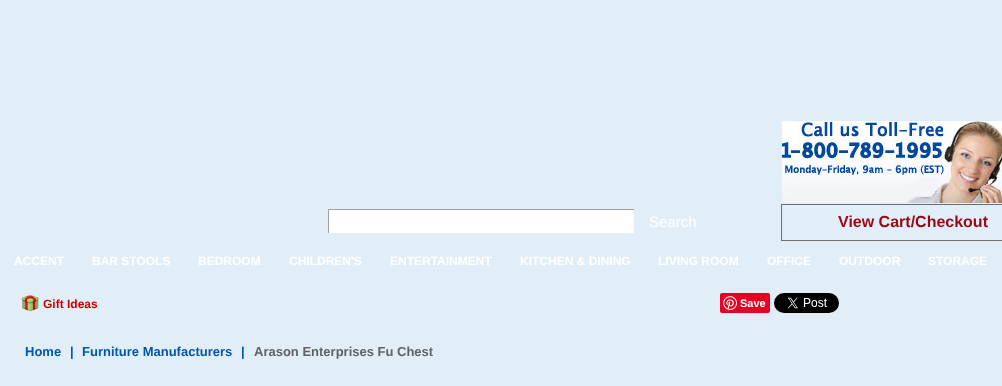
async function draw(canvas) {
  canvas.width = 1002
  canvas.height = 386
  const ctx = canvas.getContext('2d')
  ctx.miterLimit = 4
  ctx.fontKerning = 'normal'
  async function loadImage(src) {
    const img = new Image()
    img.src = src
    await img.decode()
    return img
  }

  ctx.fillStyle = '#e2eef7'
  ctx.fillRect(0, 0, 1002, 386)
  ctx.fillStyle = '#fff'
  ctx.fillRect(329, 210, 305, 23)
  ctx.fillStyle = '#a4a09f'
  ctx.fillRect(328, 209, 306, 1)
  ctx.fillRect(328, 209, 1, 24)
  ctx.font = '15px Liberation Sans'
  ctx.fillStyle = '#fff'
  ctx.fillText('Search', 649, 227)
  ctx.drawImage(await loadImage('image0.png'), 782, 121, 220, 82)
  ctx.strokeStyle = '#707070'
  ctx.strokeRect(781.5, 204.5, 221, 36)
  ctx.font = 'bold 16px Liberation Sans'
  ctx.fillStyle = '#970917'
  ctx.fillText('View Cart/Checkout', 838, 227)
  ctx.font = 'bold 12px Liberation Sans'
  ctx.fillStyle = '#fff'
  ctx.fillText('ACCENT', 14, 265)
  ctx.fillText('BAR STOOLS', 92, 265)
  ctx.fillText('BEDROOM', 198, 265)
  ctx.fillText('CHILDREN\'S', 289, 265)
  ctx.fillText('ENTERTAINMENT', 390, 265)
  ctx.fillText('KITCHEN & DINING', 520, 265)
  ctx.fillText('LIVING ROOM', 658, 265)
  ctx.fillText('OFFICE', 767, 265)
  ctx.fillText('OUTDOOR', 839, 265)
  ctx.fillText('STORAGE', 928, 265)
  ctx.drawImage(await loadImage('image1.png'), 21, 294, 18, 18)
  ctx.fillStyle = '#c00'
  ctx.fillText('Gift Ideas', 43, 308)
  ctx.fillStyle = '#e60023'
  ctx.beginPath()
  ctx.roundRect(720, 293, 50, 20, 2)
  ctx.fill()
  ctx.drawImage(await loadImage('image2.png'), 723, 296, 14, 14)
  ctx.font = 'bold 11px Liberation Sans'
  ctx.fillStyle = '#fff'
  ctx.fillText('Save', 740, 307)
  ctx.drawImage(await loadImage('image3.png'), 774, 293, 65, 20)
  ctx.font = 'bold 13px Liberation Sans'
  ctx.fillStyle = '#0057ab'
  ctx.fillText('Home', 25, 356)
  ctx.fillText('|', 70, 356)
  ctx.fillText('Furniture Manufacturers', 82, 356)
  ctx.fillText('|', 241, 356)
  ctx.fillStyle = '#626262'
  ctx.fillText('Arason Enterprises Fu Chest', 254, 356)
}

draw(document.querySelector('canvas'))
